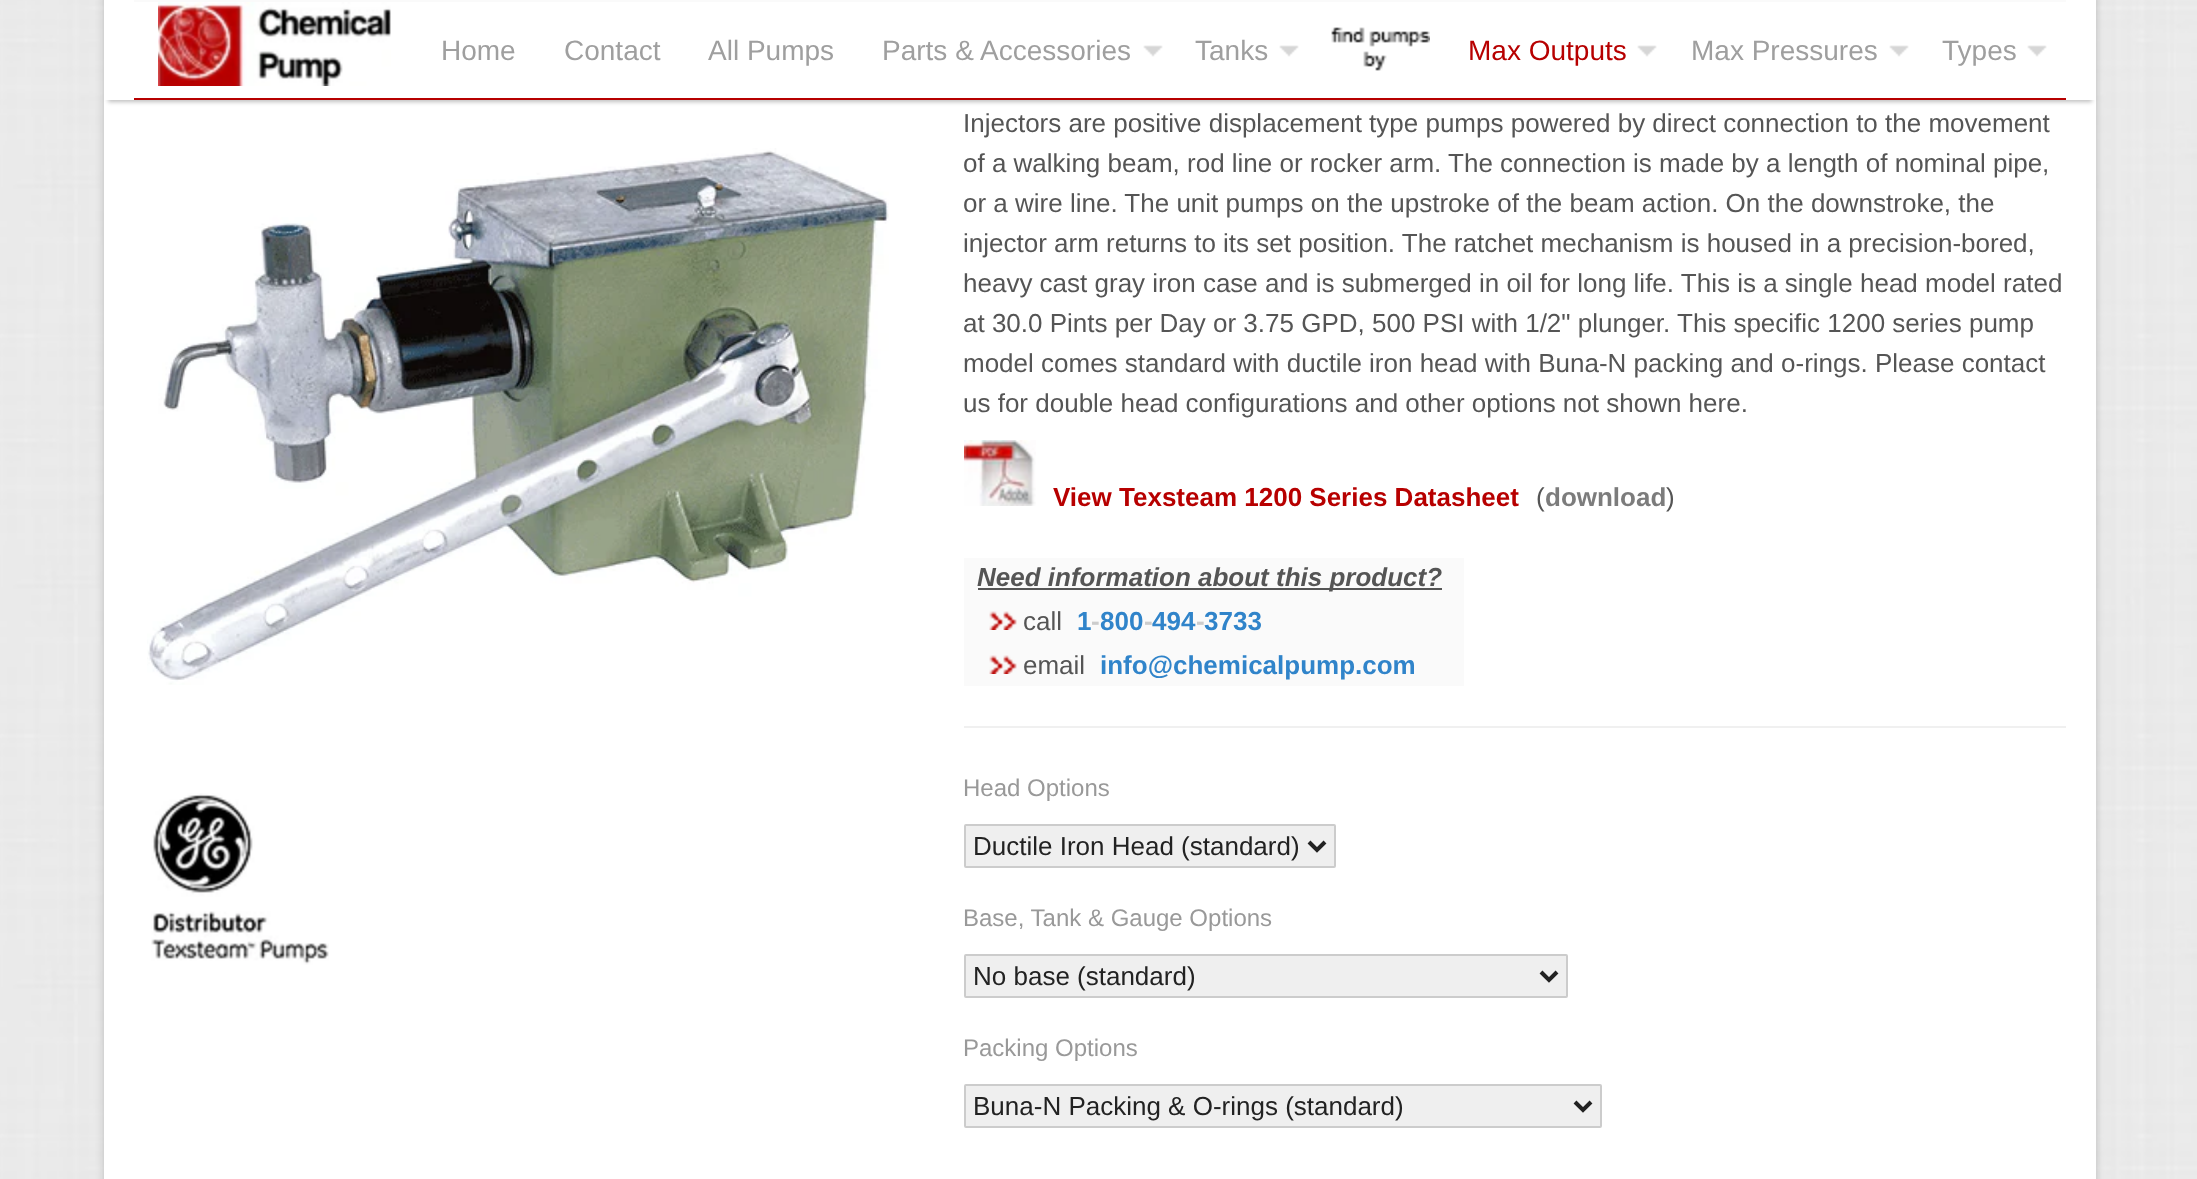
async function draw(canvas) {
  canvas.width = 2197
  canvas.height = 1179
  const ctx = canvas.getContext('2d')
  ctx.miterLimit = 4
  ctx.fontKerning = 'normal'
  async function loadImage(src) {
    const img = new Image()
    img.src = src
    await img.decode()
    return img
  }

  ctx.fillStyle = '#fff'
  ctx.fillRect(0, 0, 2197, 1179)
  ctx.drawImage(await loadImage('image0.png'), 0, 0, 2197, 1179)
  ctx.fillStyle = '#00000033'
  ctx.filter = 'blur(4px)'
  ctx.beginPath()
  ctx.rect(104, -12, 1992, 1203)
  ctx.fill()
  ctx.filter = 'none'
  ctx.fillStyle = '#fff'
  ctx.fillRect(104, 100, 1992, 1079)
  ctx.fillStyle = '#00000040'
  ctx.filter = 'blur(2px)'
  ctx.beginPath()
  ctx.rect(108, 10, 1984, 92)
  ctx.fill()
  ctx.filter = 'none'
  ctx.fillStyle = '#fff'
  ctx.fillRect(104, 0, 1992, 100)
  ctx.fillStyle = '#fafafa'
  ctx.fillRect(134, 0, 1932, 2)
  ctx.fillStyle = '#b70000'
  ctx.fillRect(134, 98, 1932, 2)
  ctx.drawImage(await loadImage('image1.png'), 158, 2, 233, 84)
  ctx.font = '28px Liberation Sans'
  ctx.fillStyle = '#9f9f9f'
  ctx.fillText('Home', 441, 60)
  ctx.fillText('Contact', 564, 60)
  ctx.fillText('All Pumps', 708, 60)
  ctx.drawImage(await loadImage('image2.png'), 1143, 45, 20, 12)
  ctx.fillText('Parts & Accessories', 882, 60)
  ctx.drawImage(await loadImage('image2.png'), 1279, 45, 20, 12)
  ctx.fillText('Tanks', 1195, 60)
  ctx.drawImage(await loadImage('image3.png'), 1331, 27, 99, 44)
  ctx.drawImage(await loadImage('image2.png'), 1637, 45, 20, 12)
  ctx.fillStyle = '#b70000'
  ctx.fillText('Max Outputs', 1468, 60)
  ctx.drawImage(await loadImage('image2.png'), 1889, 45, 20, 12)
  ctx.fillStyle = '#9f9f9f'
  ctx.fillText('Max Pressures', 1691, 60)
  ctx.drawImage(await loadImage('image2.png'), 2027, 45, 20, 12)
  ctx.fillText('Types', 1942, 60)
  ctx.drawImage(await loadImage('image4.png'), 147, 148, 742, 537)
  ctx.drawImage(await loadImage('image5.png'), 151, 793, 178, 172)
  ctx.fillStyle = '#f0f0f0'
  ctx.fillRect(964, 726, 1102, 2)
  ctx.font = '26px Liberation Sans'
  ctx.fillStyle = '#555'
  ctx.fillText('Injectors are positive displacement type pumps powered by direct connection to the movement', 963, 132)
  ctx.fillText('of a walking beam, rod line or rocker arm. The connection is made by a length of nominal pipe,', 963, 172)
  ctx.fillText('or a wire line. The unit pumps on the upstroke of the beam action. On the downstroke, the', 963, 212)
  ctx.fillText('injector arm returns to its set position. The ratchet mechanism is housed in a precision-bored,', 963, 252)
  ctx.fillText('heavy cast gray iron case and is submerged in oil for long life. This is a single head model rated', 963, 292)
  ctx.fillText('at 30.0 Pints per Day or 3.75 GPD, 500 PSI with 1/2" plunger. This specific 1200 series pump', 963, 332)
  ctx.fillText('model comes standard with ductile iron head with Buna-N packing and o-rings. Please contact', 963, 372)
  ctx.fillText('us for double head configurations and other options not shown here.', 963, 412)
  ctx.drawImage(await loadImage('image6.png'), 964, 440, 72, 66)
  ctx.font = 'bold 26px Liberation Sans'
  ctx.fillStyle = '#b70000'
  ctx.fillText('View Texsteam 1200 Series Datasheet', 1053, 506)
  ctx.font = '26px Liberation Sans'
  ctx.fillStyle = '#555'
  ctx.fillText('(', 1536, 506)
  ctx.font = 'bold 26px Liberation Sans'
  ctx.fillStyle = '#7c7c7c'
  ctx.fillText('download', 1545, 506)
  ctx.font = '26px Liberation Sans'
  ctx.fillStyle = '#555'
  ctx.fillText(')', 1666, 506)
  ctx.fillStyle = '#fafafa'
  ctx.fillRect(964, 558, 500, 128)
  ctx.fillStyle = '#555'
  ctx.fillRect(978, 588, 464, 2)
  ctx.font = 'italic bold 26px Liberation Sans'
  ctx.fillText('Need information about this product?', 977, 586)
  ctx.drawImage(await loadImage('image7.png'), 989, 611, 28, 19)
  ctx.font = '26px Liberation Sans'
  ctx.fillText('call', 1023, 630)
  ctx.font = 'bold 26px Liberation Sans'
  ctx.fillStyle = '#3084ca'
  ctx.fillText('1', 1077, 630)
  ctx.fillStyle = '#ccc'
  ctx.fillText('-', 1091, 630)
  ctx.fillStyle = '#3084ca'
  ctx.fillText('800', 1100, 630)
  ctx.fillStyle = '#ccc'
  ctx.fillText('-', 1144, 630)
  ctx.fillStyle = '#3084ca'
  ctx.fillText('494', 1152, 630)
  ctx.fillStyle = '#ccc'
  ctx.fillText('-', 1196, 630)
  ctx.fillStyle = '#3084ca'
  ctx.fillText('3733', 1204, 630)
  ctx.drawImage(await loadImage('image7.png'), 989, 655, 28, 19)
  ctx.font = '26px Liberation Sans'
  ctx.fillStyle = '#555'
  ctx.fillText('email', 1023, 674)
  ctx.font = 'bold 26px Liberation Sans'
  ctx.fillStyle = '#3084ca'
  ctx.fillText('info@chemicalpump.com', 1100, 674)
  ctx.font = '24px Liberation Sans'
  ctx.fillStyle = '#999'
  ctx.fillText('Head Options', 963, 796)
  ctx.fillStyle = '#efefef'
  ctx.beginPath()
  ctx.roundRect(965, 825, 370, 42, 1)
  ctx.fill()
  ctx.strokeStyle = '#ccc'
  ctx.lineWidth = 2
  ctx.stroke()
  ctx.beginPath()
  ctx.moveTo(1309, 842)
  ctx.lineTo(1317, 850)
  ctx.lineTo(1325, 842)
  ctx.strokeStyle = '#222'
  ctx.lineWidth = 4
  ctx.stroke()
  ctx.font = '26px Liberation Sans'
  ctx.fillStyle = '#222'
  ctx.fillText('Ductile Iron Head (standard)', 973, 855)
  ctx.font = '24px Liberation Sans'
  ctx.fillStyle = '#999'
  ctx.fillText('Base, Tank & Gauge Options', 963, 926)
  ctx.fillStyle = '#efefef'
  ctx.beginPath()
  ctx.roundRect(965, 955, 602, 42, 1)
  ctx.fill()
  ctx.strokeStyle = '#ccc'
  ctx.lineWidth = 2
  ctx.stroke()
  ctx.beginPath()
  ctx.moveTo(1541, 972)
  ctx.lineTo(1549, 980)
  ctx.lineTo(1557, 972)
  ctx.strokeStyle = '#222'
  ctx.lineWidth = 4
  ctx.stroke()
  ctx.font = '26px Liberation Sans'
  ctx.fillStyle = '#222'
  ctx.fillText('No base (standard)', 973, 985)
  ctx.font = '24px Liberation Sans'
  ctx.fillStyle = '#999'
  ctx.fillText('Packing Options', 963, 1056)
  ctx.fillStyle = '#efefef'
  ctx.beginPath()
  ctx.roundRect(965, 1085, 636, 42, 1)
  ctx.fill()
  ctx.strokeStyle = '#ccc'
  ctx.lineWidth = 2
  ctx.stroke()
  ctx.beginPath()
  ctx.moveTo(1575, 1102)
  ctx.lineTo(1583, 1110)
  ctx.lineTo(1591, 1102)
  ctx.strokeStyle = '#222'
  ctx.lineWidth = 4
  ctx.stroke()
  ctx.font = '26px Liberation Sans'
  ctx.fillStyle = '#222'
  ctx.fillText('Buna-N Packing & O-rings (standard)', 973, 1115)
}

draw(document.querySelector('canvas'))
